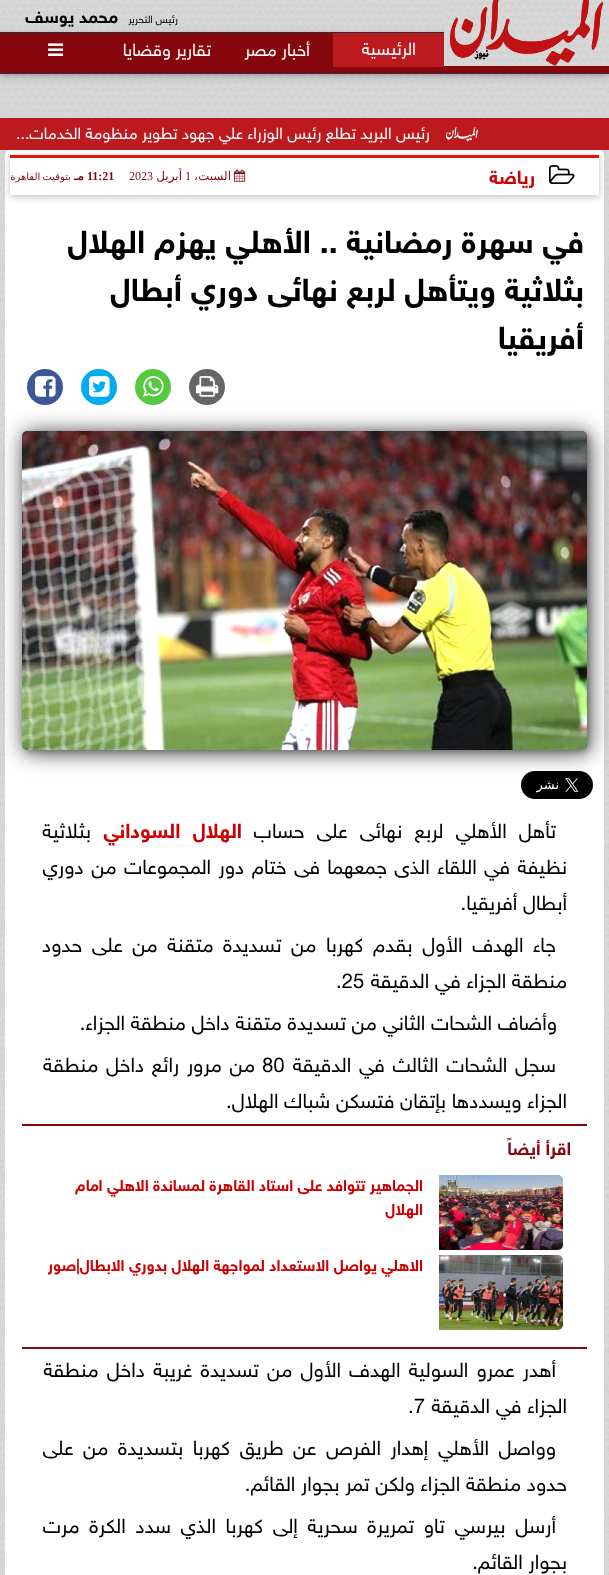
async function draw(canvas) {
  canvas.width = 609
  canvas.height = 1575
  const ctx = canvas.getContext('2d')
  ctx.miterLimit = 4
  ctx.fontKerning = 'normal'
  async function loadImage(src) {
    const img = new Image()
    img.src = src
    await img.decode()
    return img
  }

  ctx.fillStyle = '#cfcfcf'
  ctx.fillRect(0, 0, 609, 1575)
  ctx.drawImage(await loadImage('image0.png'), 0, 0, 609, 1575)
  ctx.fillStyle = '#0000001f'
  ctx.filter = 'blur(5px)'
  ctx.beginPath()
  ctx.rect(0, 34, 609, 42)
  ctx.fill()
  ctx.filter = 'none'
  ctx.fillStyle = '#00000029'
  ctx.filter = 'blur(2.5px)'
  ctx.beginPath()
  ctx.rect(0, 34, 609, 42)
  ctx.fill()
  ctx.filter = 'none'
  ctx.direction = 'rtl'
  ctx.font = '10.5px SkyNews'
  ctx.fillStyle = '#000'
  ctx.fillText('رئيس التحرير', 178, 23)
  ctx.font = 'bold 17.5px SkyNews'
  ctx.fillText('محمد يوسف', 118, 23)
  ctx.fillStyle = '#86070c'
  ctx.fillRect(0, 33, 609, 40)
  ctx.fillStyle = '#2b2d42'
  ctx.fillRect(0, 32, 444, 1)
  ctx.fillRect(0, 73, 609, 1)
  ctx.fillStyle = '#cfcfcf'
  ctx.fillRect(444, 0, 165, 66)
  ctx.drawImage(await loadImage('image1.png'), 444, 0, 165, 66)
  ctx.drawImage(await loadImage('image2.png'), 450, 0, 153, 66)
  ctx.fillStyle = '#bd1a20'
  ctx.fillRect(333, 33, 111, 34)
  ctx.font = '17.5px SkyNews'
  ctx.fillStyle = '#fff'
  ctx.fillText('الرئيسية', 416, 55)
  ctx.fillText('أخبار مصر', 310, 56)
  ctx.fillText('تقارير وقضايا', 211, 56)
  ctx.drawImage(await loadImage('image3.png'), 48, 43, 16, 13)
  ctx.fillStyle = '#bd1a20'
  ctx.fillRect(0, 118, 609, 32)
  ctx.drawImage(await loadImage('image4.png'), 446, 126, 32, 16)
  ctx.font = '16px SkyNews'
  ctx.fillStyle = '#fff'
  ctx.fillText('رئيس البريد تطلع رئيس الوزراء علي جهود تطوير منظومة الخدمات...', 430, 139)
  ctx.beginPath()
  ctx.roundRect(5, 150, 599, 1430, 5)
  ctx.fill()
  ctx.save()
  ctx.beginPath()
  ctx.moveTo(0, 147)
  ctx.lineTo(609, 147)
  ctx.lineTo(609, 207)
  ctx.lineTo(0, 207)
  ctx.closePath()
  ctx.moveTo(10, 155)
  ctx.lineTo(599, 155)
  ctx.lineTo(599, 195)
  ctx.lineTo(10, 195)
  ctx.closePath()
  ctx.clip('evenodd')
  ctx.fillStyle = '#00000040'
  ctx.filter = 'blur(3px)'
  ctx.beginPath()
  ctx.rect(10, 157, 589, 40)
  ctx.fill()
  ctx.filter = 'none'
  ctx.restore()
  ctx.fillStyle = '#ec1104'
  ctx.fillRect(10, 155, 589, 3)
  ctx.drawImage(await loadImage('image5.png'), 549, 165, 26, 19)
  ctx.font = 'bold 19px SkyNews'
  ctx.fillStyle = '#c00'
  ctx.fillText('رياضة', 535, 184)
  ctx.drawImage(await loadImage('image6.png'), 234, 169, 12, 13)
  ctx.font = '12px DejaVu Sans'
  ctx.fillStyle = '#86070c'
  ctx.fillText('السبت،', 231, 180)
  ctx.direction = 'ltr'
  ctx.font = '12px Liberation Serif'
  ctx.fillText('1', 185, 180)
  ctx.direction = 'rtl'
  ctx.font = '12px DejaVu Sans'
  ctx.fillText('أبريل', 182, 180)
  ctx.direction = 'ltr'
  ctx.font = '12px Liberation Serif'
  ctx.fillText('2023', 129, 180)
  ctx.font = 'bold 12px Liberation Serif'
  ctx.fillText('11:21', 87, 180)
  ctx.direction = 'rtl'
  ctx.font = 'bold 12px DejaVu Sans'
  ctx.fillText('مـ', 84, 180)
  ctx.wordSpacing = '-1px'
  ctx.font = '10px DejaVu Sans'
  ctx.fillText('بتوقيت القاهرة', 71, 180)
  ctx.wordSpacing = '0px'
  ctx.font = 'bold 32px SkyNews'
  ctx.fillStyle = '#000'
  ctx.fillText('في سهرة رمضانية .. الأهلي يهزم الهلال', 584, 253)
  ctx.fillText('بثلاثية ويتأهل لربع نهائى دوري أبطال', 584, 301)
  ctx.fillText('أفريقيا', 584, 349)
  ctx.fillStyle = '#666'
  ctx.beginPath()
  ctx.arc(207, 387, 18, 0, 2 * Math.PI)
  ctx.fill()
  ctx.drawImage(await loadImage('image7.png'), 196, 376, 23, 21)
  ctx.fillStyle = '#57c93e'
  ctx.beginPath()
  ctx.arc(153, 387, 18, 0, 2 * Math.PI)
  ctx.fill()
  ctx.drawImage(await loadImage('image8.png'), 143, 376, 21, 21)
  ctx.fillStyle = '#00aced'
  ctx.beginPath()
  ctx.arc(99, 387, 18, 0, 2 * Math.PI)
  ctx.fill()
  ctx.drawImage(await loadImage('image9.png'), 89, 376, 21, 21)
  ctx.fillStyle = '#3b5999'
  ctx.beginPath()
  ctx.arc(45, 387, 18, 0, 2 * Math.PI)
  ctx.fill()
  ctx.drawImage(await loadImage('image10.png'), 35, 376, 21, 21)
  ctx.drawImage(await loadImage('image12.png'), 521, 771, 72, 28)
  ctx.fillStyle = '#00000080'
  ctx.filter = 'blur(12.5px)'
  ctx.beginPath()
  ctx.roundRect(24, 433, 565, 319, 5)
  ctx.fill()
  ctx.filter = 'none'
  ctx.fillStyle = '#00000059'
  ctx.filter = 'blur(8.5px)'
  ctx.beginPath()
  ctx.roundRect(24, 433, 565, 319, 5)
  ctx.fill()
  ctx.filter = 'none'
  ctx.fillStyle = '#00000033'
  ctx.filter = 'blur(2.5px)'
  ctx.beginPath()
  ctx.roundRect(24, 433, 565, 319, 5)
  ctx.fill()
  ctx.filter = 'none'
  ctx.drawImage(await loadImage('image11.png'), 22, 431, 565, 319)
  ctx.wordSpacing = '6.5px'
  ctx.font = '20.4px SkyNews'
  ctx.fillStyle = '#000'
  ctx.fillText('تأهل الأهلي لربع نهائى على حساب', 556, 838)
  ctx.beginPath()
  ctx.moveTo(103, 845.5)
  ctx.lineTo(242, 845.5)
  ctx.strokeStyle = '#eee'
  ctx.setLineDash([1, 1])
  ctx.stroke()
  ctx.font = 'bold 20.4px SkyNews'
  ctx.fillStyle = '#c00'
  ctx.fillText('الهلال السوداني', 242, 838)
  ctx.wordSpacing = '0px'
  ctx.font = '20.4px SkyNews'
  ctx.fillStyle = '#000'
  ctx.fillText('بثلاثية', 91, 838)
  ctx.wordSpacing = '1.75px'
  ctx.fillText('نظيفة في اللقاء الذى جمعهما فى ختام دور المجموعات من دوري', 567, 874)
  ctx.wordSpacing = '0px'
  ctx.fillText('أبطال أفريقيا.', 567, 910)
  ctx.wordSpacing = '3.9px'
  ctx.fillText('جاء الهدف الأول بقدم كهربا من تسديدة متقنة من على حدود', 556, 952)
  ctx.wordSpacing = '0px'
  ctx.fillText('منطقة الجزاء في الدقيقة', 567, 988)
  ctx.direction = 'ltr'
  ctx.fillText('.25', 336, 988)
  ctx.direction = 'rtl'
  ctx.fillText('وأضاف الشحات الثاني من تسديدة متقنة داخل منطقة الجزاء.', 557, 1030)
  ctx.wordSpacing = '2px'
  ctx.fillText('سجل الشحات الثالث في الدقيقة', 556, 1072)
  ctx.wordSpacing = '0px'
  ctx.direction = 'ltr'
  ctx.fillText('80', 262, 1072)
  ctx.wordSpacing = '2px'
  ctx.direction = 'rtl'
  ctx.fillText('من مرور رائع داخل منطقة', 255, 1072)
  ctx.wordSpacing = '0px'
  ctx.fillText('الجزاء ويسددها بإتقان فتسكن شباك الهلال.', 567, 1108)
  ctx.fillStyle = '#86070c'
  ctx.fillRect(22, 1124, 565, 2)
  ctx.fillRect(22, 1347, 565, 2)
  ctx.font = 'bold 18px SkyNews'
  ctx.fillText('اقرأ أيضاً', 571, 1155)
  ctx.beginPath()
  ctx.moveTo(75, 1197.5)
  ctx.lineTo(423, 1197.5)
  ctx.stroke()
  ctx.beginPath()
  ctx.moveTo(385, 1221.5)
  ctx.lineTo(423, 1221.5)
  ctx.stroke()
  ctx.drawImage(await loadImage('image13.png'), 439, 1175, 124, 75)
  ctx.font = 'bold 15.6px SkyNews'
  ctx.fillStyle = '#c00'
  ctx.fillText('الجماهير تتوافد على استاد القاهرة لمساندة الاهلي امام', 423, 1191)
  ctx.fillText('الهلال', 423, 1215)
  ctx.beginPath()
  ctx.moveTo(48, 1277.5)
  ctx.lineTo(423, 1277.5)
  ctx.stroke()
  ctx.drawImage(await loadImage('image14.png'), 439, 1255, 124, 75)
  ctx.fillText('الاهلي يواصل الاستعداد لمواجهة الهلال بدوري الابطال|صور', 423, 1271)
  ctx.wordSpacing = '2.5px'
  ctx.font = '20.4px SkyNews'
  ctx.fillStyle = '#000'
  ctx.fillText('أهدر عمرو السولية الهدف الأول من تسديدة غريبة داخل منطقة', 556, 1377)
  ctx.wordSpacing = '0px'
  ctx.fillText('الجزاء في الدقيقة', 567, 1413)
  ctx.direction = 'ltr'
  ctx.fillText('.7', 408, 1413)
  ctx.wordSpacing = '3.9px'
  ctx.direction = 'rtl'
  ctx.fillText('وواصل الأهلي إهدار الفرص عن طريق كهربا بتسديدة من على', 556, 1455)
  ctx.wordSpacing = '0px'
  ctx.fillText('حدود منطقة الجزاء ولكن تمر بجوار القائم.', 567, 1491)
  ctx.wordSpacing = '4px'
  ctx.fillText('أرسل بيرسي تاو تمريرة سحرية إلى كهربا الذي سدد الكرة مرت', 556, 1533)
  ctx.wordSpacing = '0px'
  ctx.fillText('بجوار القائم.', 567, 1569)
}

draw(document.querySelector('canvas'))
